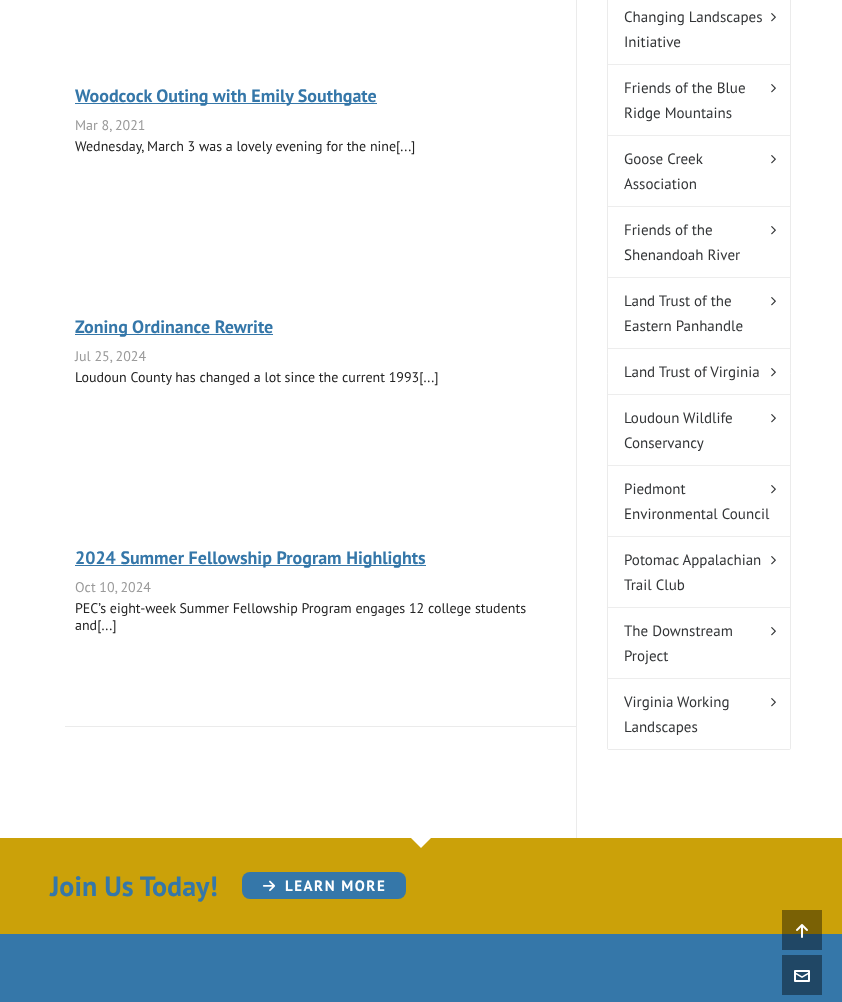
async function draw(canvas) {
  canvas.width = 842
  canvas.height = 1002
  const ctx = canvas.getContext('2d')
  ctx.miterLimit = 4
  ctx.fontKerning = 'normal'
  async function loadImage(src) {
    const img = new Image()
    img.src = src
    await img.decode()
    return img
  }

  ctx.fillStyle = '#fff'
  ctx.fillRect(0, 0, 842, 1002)
  ctx.fillStyle = '#ebebeb'
  ctx.fillRect(576, 0, 1, 838)
  ctx.fillStyle = '#3577a9'
  ctx.fillRect(75, 103, 302, 1)
  ctx.font = 'bold 18px PT Sans'
  ctx.fillText('Woodcock Outing with Emily Southgate', 75, 102)
  ctx.font = '14px PT Sans'
  ctx.fillStyle = '#999'
  ctx.fillText('Mar 8, 2021', 75, 130)
  ctx.fillStyle = '#222'
  ctx.fillText('Wednesday, March 3 was a lovely evening for the nine[...]', 75, 151)
  ctx.fillStyle = '#3577a9'
  ctx.fillRect(75, 334, 198, 1)
  ctx.font = 'bold 18px PT Sans'
  ctx.fillText('Zoning Ordinance Rewrite', 75, 333)
  ctx.font = '14px PT Sans'
  ctx.fillStyle = '#999'
  ctx.fillText('Jul 25, 2024', 75, 361)
  ctx.fillStyle = '#222'
  ctx.fillText('Loudoun County has changed a lot since the current 1993[...]', 75, 382)
  ctx.fillStyle = '#3577a9'
  ctx.fillRect(75, 565, 351, 1)
  ctx.font = 'bold 18px PT Sans'
  ctx.fillText('2024 Summer Fellowship Program Highlights', 75, 564)
  ctx.font = '14px PT Sans'
  ctx.fillStyle = '#999'
  ctx.fillText('Oct 10, 2024', 75, 592)
  ctx.fillStyle = '#222'
  ctx.fillText('PEC’s eight-week Summer Fellowship Program engages 12 college students', 75, 613)
  ctx.fillText('and[...]', 75, 630)
  ctx.fillStyle = '#ebebeb'
  ctx.fillRect(65, 726, 511, 1)
  ctx.beginPath()
  ctx.roundRect(607.5, -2.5, 183, 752, 1.5)
  ctx.strokeStyle = '#ebebeb'
  ctx.stroke()
  ctx.font = '15px PT Sans'
  ctx.fillStyle = '#323436'
  ctx.fillText('Changing Landscapes', 624, 22)
  ctx.drawImage(await loadImage('image0.png'), 771, 13, 5, 9)
  ctx.fillText('Initiative', 624, 47)
  ctx.fillStyle = '#ededed'
  ctx.fillRect(608, 64, 182, 1)
  ctx.fillStyle = '#323436'
  ctx.fillText('Friends of the Blue', 624, 93)
  ctx.drawImage(await loadImage('image0.png'), 771, 84, 5, 9)
  ctx.fillText('Ridge Mountains', 624, 118)
  ctx.fillStyle = '#ededed'
  ctx.fillRect(608, 135, 182, 1)
  ctx.fillStyle = '#323436'
  ctx.fillText('Goose Creek', 624, 164)
  ctx.drawImage(await loadImage('image0.png'), 771, 155, 5, 9)
  ctx.fillText('Association', 624, 189)
  ctx.fillStyle = '#ededed'
  ctx.fillRect(608, 206, 182, 1)
  ctx.fillStyle = '#323436'
  ctx.fillText('Friends of the', 624, 235)
  ctx.drawImage(await loadImage('image0.png'), 771, 226, 5, 9)
  ctx.fillText('Shenandoah River', 624, 260)
  ctx.fillStyle = '#ededed'
  ctx.fillRect(608, 277, 182, 1)
  ctx.fillStyle = '#323436'
  ctx.fillText('Land Trust of the', 624, 306)
  ctx.drawImage(await loadImage('image0.png'), 771, 297, 5, 9)
  ctx.fillText('Eastern Panhandle', 624, 331)
  ctx.fillStyle = '#ededed'
  ctx.fillRect(608, 348, 182, 1)
  ctx.fillStyle = '#323436'
  ctx.fillText('Land Trust of Virginia', 624, 377)
  ctx.drawImage(await loadImage('image0.png'), 771, 368, 5, 9)
  ctx.fillStyle = '#ededed'
  ctx.fillRect(608, 394, 182, 1)
  ctx.fillStyle = '#323436'
  ctx.fillText('Loudoun Wildlife', 624, 423)
  ctx.drawImage(await loadImage('image0.png'), 771, 414, 5, 9)
  ctx.fillText('Conservancy', 624, 448)
  ctx.fillStyle = '#ededed'
  ctx.fillRect(608, 465, 182, 1)
  ctx.fillStyle = '#323436'
  ctx.fillText('Piedmont', 624, 494)
  ctx.drawImage(await loadImage('image0.png'), 771, 485, 5, 9)
  ctx.fillText('Environmental Council', 624, 519)
  ctx.fillStyle = '#ededed'
  ctx.fillRect(608, 536, 182, 1)
  ctx.fillStyle = '#323436'
  ctx.fillText('Potomac Appalachian', 624, 565)
  ctx.drawImage(await loadImage('image0.png'), 771, 556, 5, 9)
  ctx.fillText('Trail Club', 624, 590)
  ctx.fillStyle = '#ededed'
  ctx.fillRect(608, 607, 182, 1)
  ctx.fillStyle = '#323436'
  ctx.fillText('The Downstream', 624, 636)
  ctx.drawImage(await loadImage('image0.png'), 771, 627, 5, 9)
  ctx.fillText('Project', 624, 661)
  ctx.fillStyle = '#ededed'
  ctx.fillRect(608, 678, 182, 1)
  ctx.fillStyle = '#fff'
  ctx.fillRect(608, 748, 182, 1)
  ctx.fillStyle = '#323436'
  ctx.fillText('Virginia Working', 624, 707)
  ctx.drawImage(await loadImage('image0.png'), 771, 698, 5, 9)
  ctx.fillText('Landscapes', 624, 732)
  ctx.fillStyle = '#cba109'
  ctx.fillRect(0, 838, 842, 96)
  ctx.fillStyle = '#7a6105'
  ctx.fillRect(782, 910, 40, 24)
  ctx.fillStyle = '#fff'
  ctx.beginPath()
  ctx.moveTo(410, 837)
  ctx.lineTo(432, 837)
  ctx.lineTo(421, 848)
  ctx.closePath()
  ctx.fill()
  ctx.font = 'bold 28px PT Sans'
  ctx.fillStyle = '#3577a9'
  ctx.fillText('Join Us Today!', 50, 896)
  ctx.beginPath()
  ctx.roundRect(242, 872, 164, 27, 8)
  ctx.fill()
  ctx.drawImage(await loadImage('image1.png'), 262, 880, 14, 12)
  ctx.letterSpacing = '1.5px'
  ctx.font = 'bold 15px PT Sans'
  ctx.fillStyle = '#fff'
  ctx.fillText('LEARN MORE', 285, 891)
  ctx.fillStyle = '#3577a9'
  ctx.fillRect(0, 934, 842, 68)
  ctx.fillStyle = '#204765'
  ctx.fillRect(782, 934, 40, 16)
  ctx.drawImage(await loadImage('image2.png'), 796, 924, 12, 14)
  ctx.fillRect(782, 955, 40, 40)
  ctx.drawImage(await loadImage('image3.png'), 794, 970, 16, 12)
}

draw(document.querySelector('canvas'))
